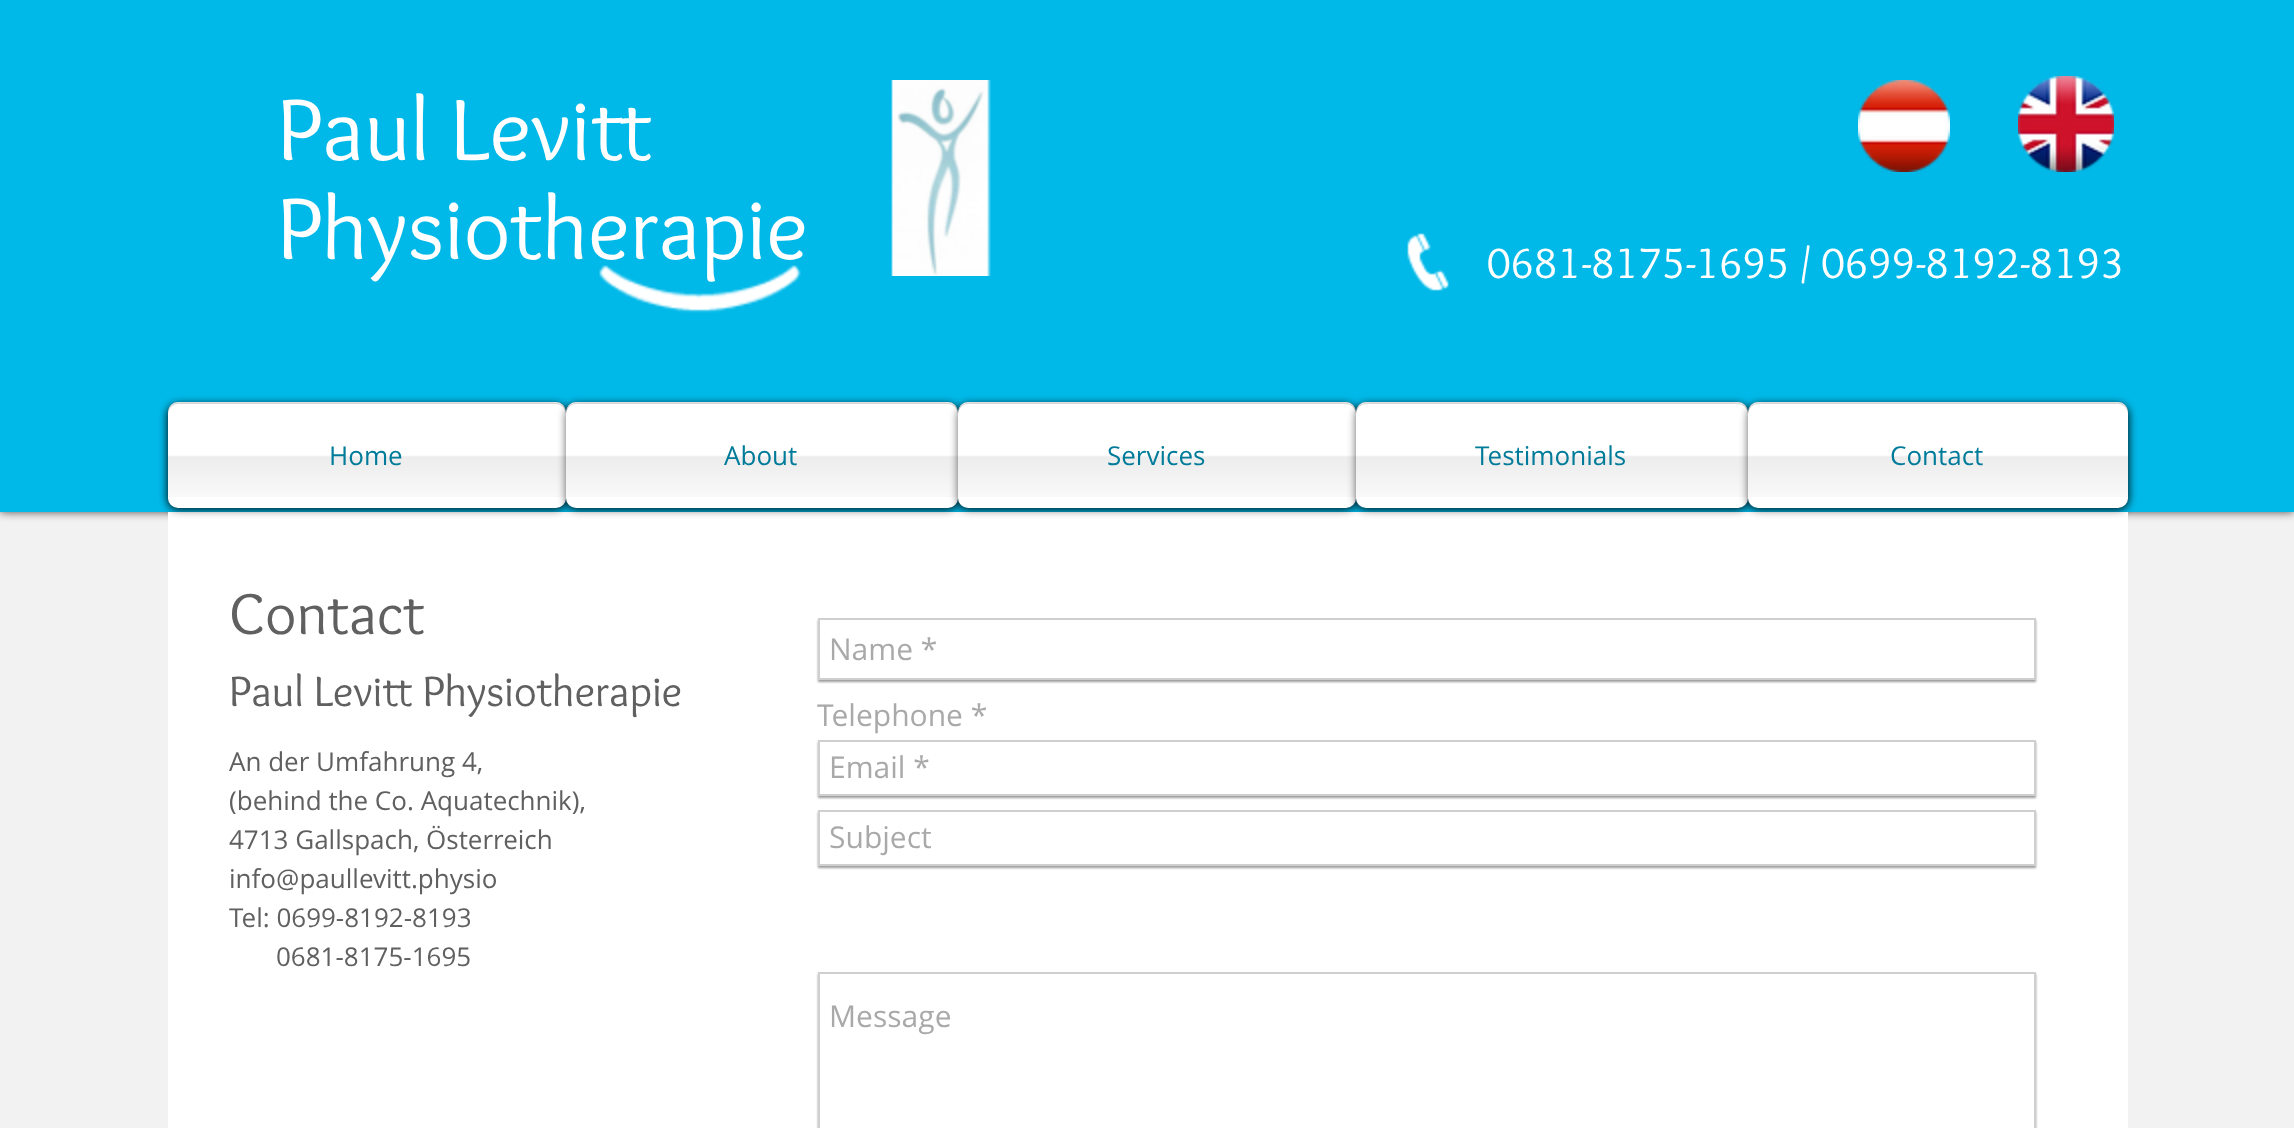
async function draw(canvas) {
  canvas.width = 2294
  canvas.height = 1128
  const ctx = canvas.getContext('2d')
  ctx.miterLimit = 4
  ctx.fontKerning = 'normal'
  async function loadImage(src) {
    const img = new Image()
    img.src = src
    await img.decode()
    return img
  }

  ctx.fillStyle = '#f2f2f2'
  ctx.fillRect(0, 0, 2294, 1128)
  ctx.fillStyle = '#000000b3'
  ctx.filter = 'blur(5px)'
  ctx.beginPath()
  ctx.rect(0, 0, 2294, 512)
  ctx.fill()
  ctx.filter = 'none'
  ctx.fillStyle = '#00b9e8'
  ctx.fillRect(0, 0, 2294, 512)
  ctx.font = '90px Overlock'
  ctx.fillStyle = '#fff'
  ctx.fillText('Paul Levitt', 277, 160)
  ctx.fillText('Physiotherapie', 277, 259)
  ctx.drawImage(await loadImage('image0.png'), 891, 80, 100, 196)
  ctx.drawImage(await loadImage('image1.png'), 1407, 233, 42, 58)
  ctx.drawImage(await loadImage('image2.png'), 1858, 80, 92, 92)
  ctx.drawImage(await loadImage('image3.png'), 2018, 76, 96, 96)
  ctx.drawImage(await loadImage('image4.png'), 599, 265, 202, 48)
  ctx.font = '44px Overlock'
  ctx.fillText('0681-8175-1695 / 0699-8192-8193', 1487, 278)
  ctx.fillStyle = '#00000099'
  ctx.filter = 'blur(4px)'
  ctx.beginPath()
  ctx.roundRect(168, 404, 398, 104, 10)
  ctx.fill()
  ctx.filter = 'none'
  ctx.fillStyle = '#fff'
  ctx.beginPath()
  ctx.roundRect(168, 402, 398, 104, 10)
  ctx.fill()
  ctx.drawImage(await loadImage('image5.png'), 168, 402, 398, 12)
  ctx.fillStyle = '#00000099'
  ctx.filter = 'blur(4px)'
  ctx.beginPath()
  ctx.roundRect(566, 404, 392, 104, 10)
  ctx.fill()
  ctx.filter = 'none'
  ctx.fillStyle = '#fff'
  ctx.beginPath()
  ctx.roundRect(566, 402, 392, 104, 10)
  ctx.fill()
  ctx.drawImage(await loadImage('image6.png'), 566, 402, 392, 12)
  ctx.fillStyle = '#00000099'
  ctx.filter = 'blur(4px)'
  ctx.beginPath()
  ctx.roundRect(958, 404, 398, 104, 10)
  ctx.fill()
  ctx.filter = 'none'
  ctx.fillStyle = '#fff'
  ctx.beginPath()
  ctx.roundRect(958, 402, 398, 104, 10)
  ctx.fill()
  ctx.drawImage(await loadImage('image7.png'), 958, 402, 398, 12)
  ctx.fillStyle = '#00000099'
  ctx.filter = 'blur(4px)'
  ctx.beginPath()
  ctx.roundRect(1356, 404, 392, 104, 10)
  ctx.fill()
  ctx.filter = 'none'
  ctx.fillStyle = '#fff'
  ctx.beginPath()
  ctx.roundRect(1356, 402, 392, 104, 10)
  ctx.fill()
  ctx.drawImage(await loadImage('image6.png'), 1356, 402, 392, 12)
  ctx.fillStyle = '#00000099'
  ctx.filter = 'blur(4px)'
  ctx.beginPath()
  ctx.roundRect(1748, 404, 380, 104, 10)
  ctx.fill()
  ctx.filter = 'none'
  ctx.fillStyle = '#fff'
  ctx.beginPath()
  ctx.roundRect(1748, 402, 380, 104, 10)
  ctx.fill()
  ctx.drawImage(await loadImage('image8.png'), 1748, 402, 380, 12)
  ctx.fillRect(168, 512, 1960, 616)
  ctx.fillStyle = '#00000099'
  ctx.filter = 'blur(4px)'
  ctx.beginPath()
  ctx.roundRect(168, 406, 398, 104, 10)
  ctx.fill()
  ctx.filter = 'none'
  ctx.fillStyle = '#fff'
  ctx.beginPath()
  ctx.roundRect(168, 404, 398, 104, 10)
  ctx.fill()
  ctx.drawImage(await loadImage('image9.png'), 168, 410, 398, 87)
  ctx.font = '26px Open Sans'
  ctx.fillStyle = '#007b9a'
  ctx.fillText('Home', 329, 465)
  ctx.fillStyle = '#00000099'
  ctx.filter = 'blur(4px)'
  ctx.beginPath()
  ctx.roundRect(566, 406, 392, 104, 10)
  ctx.fill()
  ctx.filter = 'none'
  ctx.fillStyle = '#fff'
  ctx.beginPath()
  ctx.roundRect(566, 404, 392, 104, 10)
  ctx.fill()
  ctx.drawImage(await loadImage('image10.png'), 566, 410, 392, 87)
  ctx.fillStyle = '#007b9a'
  ctx.fillText('About', 724, 465)
  ctx.fillStyle = '#00000099'
  ctx.filter = 'blur(4px)'
  ctx.beginPath()
  ctx.roundRect(958, 406, 398, 104, 10)
  ctx.fill()
  ctx.filter = 'none'
  ctx.fillStyle = '#fff'
  ctx.beginPath()
  ctx.roundRect(958, 404, 398, 104, 10)
  ctx.fill()
  ctx.drawImage(await loadImage('image11.png'), 958, 410, 398, 87)
  ctx.fillStyle = '#007b9a'
  ctx.fillText('Services', 1107, 465)
  ctx.fillStyle = '#00000099'
  ctx.filter = 'blur(4px)'
  ctx.beginPath()
  ctx.roundRect(1356, 406, 392, 104, 10)
  ctx.fill()
  ctx.filter = 'none'
  ctx.fillStyle = '#fff'
  ctx.beginPath()
  ctx.roundRect(1356, 404, 392, 104, 10)
  ctx.fill()
  ctx.drawImage(await loadImage('image10.png'), 1356, 410, 392, 87)
  ctx.fillStyle = '#007b9a'
  ctx.fillText('Testimonials', 1475, 465)
  ctx.fillStyle = '#00000099'
  ctx.filter = 'blur(4px)'
  ctx.beginPath()
  ctx.roundRect(1748, 406, 380, 104, 10)
  ctx.fill()
  ctx.filter = 'none'
  ctx.fillStyle = '#fff'
  ctx.beginPath()
  ctx.roundRect(1748, 404, 380, 104, 10)
  ctx.fill()
  ctx.drawImage(await loadImage('image12.png'), 1748, 410, 380, 87)
  ctx.fillStyle = '#007b9a'
  ctx.fillText('Contact', 1890, 465)
  ctx.font = '60px Overlock'
  ctx.fillStyle = '#606060'
  ctx.fillText('Contact', 229, 634)
  ctx.font = '44px Overlock'
  ctx.fillText('Paul Levitt Physiotherapie', 229, 706)
  ctx.font = '26px Open Sans'
  ctx.fillText('An der Umfahrung 4,', 229, 771)
  ctx.fillText('(behind the Co. Aquatechnik),', 229, 810)
  ctx.fillText('4713 Gallspach, Österreich', 229, 849)
  ctx.fillText('info@paullevitt.physio', 229, 888)
  ctx.fillText('Tel: 0699-8192-8193', 229, 927)
  ctx.fillText('0681-8175-1695', 276, 966)
  ctx.save()
  ctx.beginPath()
  ctx.moveTo(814, 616)
  ctx.lineTo(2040, 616)
  ctx.lineTo(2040, 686)
  ctx.lineTo(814, 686)
  ctx.closePath()
  ctx.moveTo(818, 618)
  ctx.lineTo(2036, 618)
  ctx.lineTo(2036, 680)
  ctx.lineTo(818, 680)
  ctx.closePath()
  ctx.clip('evenodd')
  ctx.fillStyle = '#5a5a5a99'
  ctx.filter = 'blur(1px)'
  ctx.beginPath()
  ctx.rect(818, 620, 1218, 62)
  ctx.fill()
  ctx.filter = 'none'
  ctx.restore()
  ctx.strokeStyle = '#cfcfcf'
  ctx.lineWidth = 2
  ctx.strokeRect(819, 619, 1216, 60)
  ctx.font = '30px Open Sans'
  ctx.fillStyle = '#a9a9a9'
  ctx.fillText('Name *', 829, 660)
  ctx.fillText('Telephone *', 817, 726)
  ctx.save()
  ctx.beginPath()
  ctx.moveTo(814, 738)
  ctx.lineTo(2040, 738)
  ctx.lineTo(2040, 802)
  ctx.lineTo(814, 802)
  ctx.closePath()
  ctx.moveTo(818, 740)
  ctx.lineTo(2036, 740)
  ctx.lineTo(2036, 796)
  ctx.lineTo(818, 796)
  ctx.closePath()
  ctx.clip('evenodd')
  ctx.fillStyle = '#5a5a5a99'
  ctx.filter = 'blur(1px)'
  ctx.beginPath()
  ctx.rect(818, 742, 1218, 56)
  ctx.fill()
  ctx.filter = 'none'
  ctx.restore()
  ctx.strokeRect(819, 741, 1216, 54)
  ctx.fillText('Email *', 829, 778)
  ctx.save()
  ctx.beginPath()
  ctx.moveTo(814, 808)
  ctx.lineTo(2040, 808)
  ctx.lineTo(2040, 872)
  ctx.lineTo(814, 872)
  ctx.closePath()
  ctx.moveTo(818, 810)
  ctx.lineTo(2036, 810)
  ctx.lineTo(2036, 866)
  ctx.lineTo(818, 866)
  ctx.closePath()
  ctx.clip('evenodd')
  ctx.fillStyle = '#5a5a5a99'
  ctx.filter = 'blur(1px)'
  ctx.beginPath()
  ctx.rect(818, 812, 1218, 56)
  ctx.fill()
  ctx.filter = 'none'
  ctx.restore()
  ctx.strokeRect(819, 811, 1216, 54)
  ctx.fillText('Subject', 829, 848)
  ctx.save()
  ctx.beginPath()
  ctx.moveTo(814, 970)
  ctx.lineTo(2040, 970)
  ctx.lineTo(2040, 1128)
  ctx.lineTo(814, 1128)
  ctx.closePath()
  ctx.moveTo(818, 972)
  ctx.lineTo(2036, 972)
  ctx.lineTo(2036, 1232)
  ctx.lineTo(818, 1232)
  ctx.closePath()
  ctx.clip('evenodd')
  ctx.fillStyle = '#5a5a5a99'
  ctx.filter = 'blur(1px)'
  ctx.beginPath()
  ctx.rect(818, 974, 1218, 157)
  ctx.fill()
  ctx.filter = 'none'
  ctx.restore()
  ctx.strokeRect(819, 973, 1216, 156)
  ctx.fillText('Message', 829, 1027)
}

draw(document.querySelector('canvas'))
